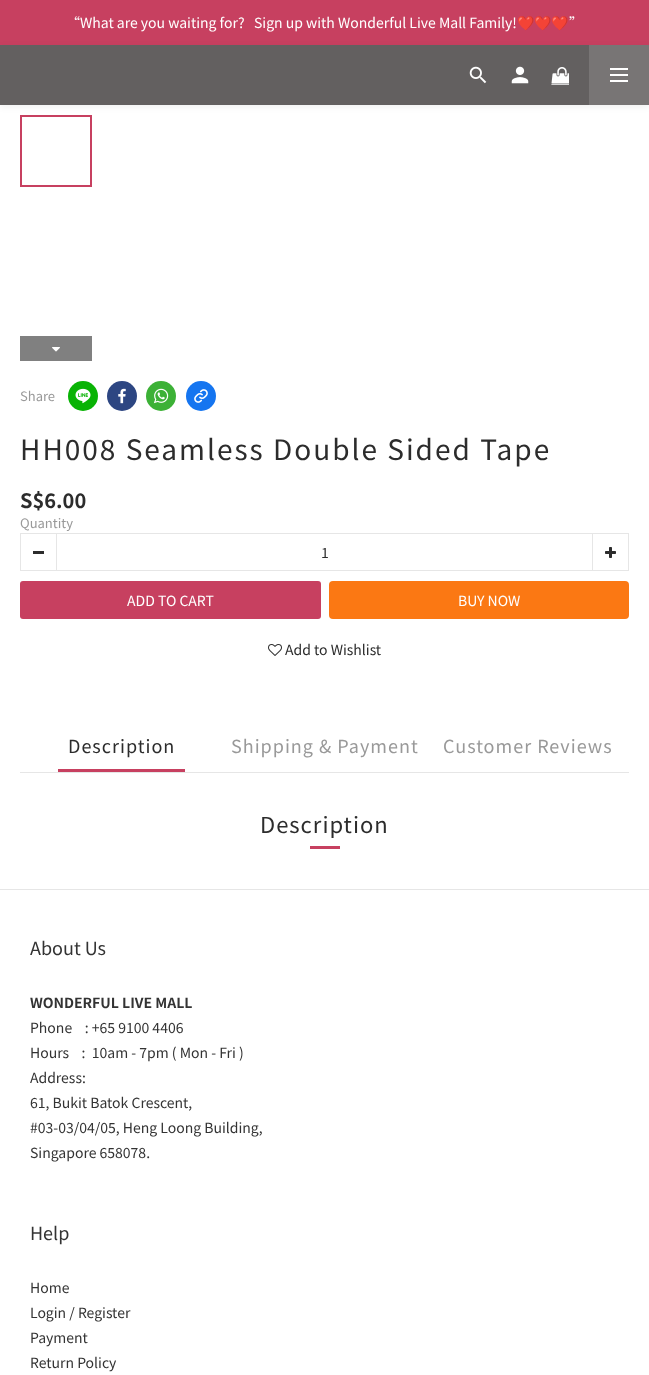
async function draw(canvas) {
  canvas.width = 649
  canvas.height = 1375
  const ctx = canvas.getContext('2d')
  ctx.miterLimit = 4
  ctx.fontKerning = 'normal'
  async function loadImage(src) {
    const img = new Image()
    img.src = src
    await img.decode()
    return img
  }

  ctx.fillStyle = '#fff'
  ctx.fillRect(0, 0, 649, 1375)
  ctx.fillStyle = '#c74060'
  ctx.fillRect(0, 0, 649, 45)
  ctx.font = '14px Noto Sans TC'
  ctx.fillStyle = '#fff'
  ctx.fillText('“What are you waiting for?   Sign up with Wonderful Live Mall Family!', 66, 28)
  ctx.font = '14px Noto Color Emoji'
  ctx.fillText('❤️❤️❤️', 517, 28)
  ctx.font = '14px Noto Sans TC'
  ctx.fillText('”', 569, 28)
  ctx.strokeStyle = '#c74060'
  ctx.lineWidth = 2
  ctx.strokeRect(21, 116, 70, 70)
  ctx.fillStyle = '#0000000f'
  ctx.filter = 'blur(3px)'
  ctx.beginPath()
  ctx.rect(0, 47, 649, 60)
  ctx.fill()
  ctx.filter = 'none'
  ctx.fillStyle = '#636060'
  ctx.fillRect(0, 45, 589, 60)
  ctx.drawImage(await loadImage('image0.png'), 469, 66, 18, 18)
  ctx.drawImage(await loadImage('image1.png'), 511, 66, 18, 18)
  ctx.drawImage(await loadImage('image2.png'), 551, 67, 18, 18)
  ctx.fillStyle = '#787575'
  ctx.fillRect(589, 45, 60, 60)
  ctx.fillStyle = '#fff'
  ctx.fillRect(610, 74, 18, 2)
  ctx.fillRect(610, 68, 18, 2)
  ctx.fillRect(610, 80, 18, 2)
  ctx.fillStyle = '#808080'
  ctx.fillRect(20, 336, 72, 25)
  ctx.drawImage(await loadImage('image3.png'), 52, 347, 8, 5)
  ctx.font = '13px Noto Sans TC'
  ctx.fillStyle = '#999'
  ctx.fillText('Share', 20, 401)
  ctx.fillStyle = '#09b305'
  ctx.beginPath()
  ctx.arc(83, 396, 15, 0, 2 * Math.PI)
  ctx.fill()
  ctx.drawImage(await loadImage('image4.png'), 75, 388, 16, 16)
  ctx.fillStyle = '#2d4682'
  ctx.beginPath()
  ctx.arc(122, 396, 15, 0, 2 * Math.PI)
  ctx.fill()
  ctx.drawImage(await loadImage('image5.png'), 118, 388, 8, 16)
  ctx.fillStyle = '#3cb136'
  ctx.beginPath()
  ctx.arc(161, 396, 15, 0, 2 * Math.PI)
  ctx.fill()
  ctx.drawImage(await loadImage('image6.png'), 153, 388, 16, 16)
  ctx.fillStyle = '#1575f0'
  ctx.beginPath()
  ctx.arc(201, 396, 15, 0, 2 * Math.PI)
  ctx.fill()
  ctx.drawImage(await loadImage('image7.png'), 194, 389, 14, 14)
  ctx.letterSpacing = '2px'
  ctx.font = '28px Noto Sans TC'
  ctx.fillStyle = '#2c2c2c'
  ctx.fillText('HH008 Seamless Double Sided Tape', 20, 460)
  ctx.letterSpacing = '0px'
  ctx.font = 'bold 20px Noto Sans TC'
  ctx.fillText('S$6.00', 20, 508)
  ctx.font = '13px Noto Sans TC'
  ctx.fillStyle = '#999'
  ctx.fillText('Quantity', 20, 528)
  ctx.fillStyle = '#e6e6e6'
  ctx.fillRect(56, 533, 537, 1)
  ctx.fillRect(56, 570, 537, 1)
  ctx.strokeStyle = '#e6e6e6'
  ctx.lineWidth = 1
  ctx.strokeRect(20.5, 533.5, 36, 37)
  ctx.fillStyle = '#2c2c2c'
  ctx.fillRect(33, 551, 11, 3)
  ctx.font = '14px Noto Sans TC'
  ctx.fillText('1', 321, 558)
  ctx.strokeRect(592.5, 533.5, 36, 37)
  ctx.drawImage(await loadImage('image8.png'), 605, 547, 11, 11)
  ctx.fillStyle = '#c74060'
  ctx.beginPath()
  ctx.roundRect(20, 581, 301, 38, 3)
  ctx.fill()
  ctx.fillStyle = '#fff'
  ctx.fillText('ADD TO CART', 127, 606)
  ctx.fillStyle = '#fb7813'
  ctx.beginPath()
  ctx.roundRect(329, 581, 300, 38, 4)
  ctx.fill()
  ctx.fillStyle = '#fff'
  ctx.fillText('BUY NOW', 458, 606)
  ctx.drawImage(await loadImage('image9.png'), 268, 644, 14, 12)
  ctx.fillStyle = '#2c2c2c'
  ctx.fillText('Add to Wishlist', 285, 655)
  ctx.fillStyle = '#e6e6e6'
  ctx.fillRect(20, 772, 609, 1)
  ctx.letterSpacing = '1px'
  ctx.font = '18px Noto Sans TC'
  ctx.fillStyle = '#2c2c2c'
  ctx.fillText('Description', 68, 753)
  ctx.fillStyle = '#c74060'
  ctx.fillRect(58, 769, 127, 3)
  ctx.fillStyle = '#999'
  ctx.fillText('Shipping & Payment', 231, 753)
  ctx.fillText('Customer Reviews', 443, 753)
  ctx.font = '22px Noto Sans TC'
  ctx.fillStyle = '#2c2c2c'
  ctx.fillText('Description', 260, 833)
  ctx.fillStyle = '#c74060'
  ctx.fillRect(310, 846, 30, 3)
  ctx.fillStyle = '#e6e6e6'
  ctx.fillRect(0, 889, 649, 1)
  ctx.letterSpacing = '0px'
  ctx.font = '18px Noto Sans TC'
  ctx.fillStyle = '#333'
  ctx.fillText('About Us', 30, 955)
  ctx.font = 'bold 14px Noto Sans TC'
  ctx.fillText('WONDERFUL LIVE MALL', 30, 1008)
  ctx.font = '14px Noto Sans TC'
  ctx.fillText('Phone    : +65 9100 4406', 30, 1033)
  ctx.fillText('Hours    :  10am - 7pm ( Mon - Fri )', 30, 1058)
  ctx.fillText('Address:', 30, 1083)
  ctx.fillText('61, Bukit Batok Crescent,', 30, 1108)
  ctx.fillText('#03-03/04/05, Heng Loong Building,', 30, 1133)
  ctx.fillText('Singapore 658078.', 30, 1158)
  ctx.font = '18px Noto Sans TC'
  ctx.fillText('Help', 30, 1240)
  ctx.font = '14px Noto Sans TC'
  ctx.fillText('Home', 30, 1293)
  ctx.fillText('Login / Register', 30, 1318)
  ctx.fillText('Payment', 30, 1343)
  ctx.fillText('Return Policy', 30, 1368)
}

draw(document.querySelector('canvas'))
